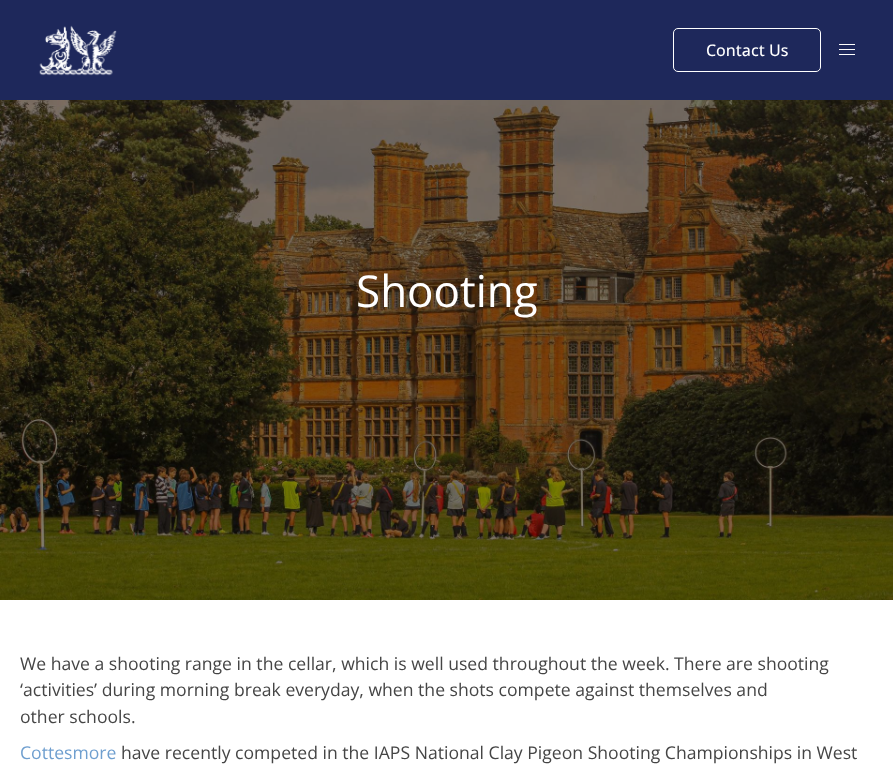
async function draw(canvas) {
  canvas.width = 893
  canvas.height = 776
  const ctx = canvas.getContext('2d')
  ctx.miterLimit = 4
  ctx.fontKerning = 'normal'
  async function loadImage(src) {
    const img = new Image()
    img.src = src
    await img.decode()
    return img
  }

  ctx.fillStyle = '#fff'
  ctx.fillRect(0, 0, 893, 776)
  ctx.fillStyle = '#1e285b'
  ctx.fillRect(0, 0, 893, 100)
  ctx.drawImage(await loadImage('image0.png'), 39, 25, 78, 51)
  ctx.beginPath()
  ctx.roundRect(673.5, 28.5, 147, 43, 4.5)
  ctx.strokeStyle = '#fff'
  ctx.stroke()
  ctx.font = '500 16px Open Sans'
  ctx.fillStyle = '#fff'
  ctx.fillText('Contact Us', 706, 56)
  ctx.fillRect(839, 44, 16, 1)
  ctx.fillRect(839, 49, 16, 1)
  ctx.fillRect(839, 54, 16, 1)
  ctx.drawImage(await loadImage('image1.png'), 0, 100, 893, 500)
  ctx.font = '44px Open Sans'
  ctx.fillText('Shooting', 356, 307)
  ctx.font = '17.6px Open Sans'
  ctx.fillStyle = '#454545'
  ctx.fillText('We have a shooting range in the cellar, which is well used throughout the week. There are shooting', 20, 670)
  ctx.fillText('‘activities’ during morning break everyday, when the shots compete against themselves and', 20, 696)
  ctx.fillText('other schools.', 20, 723)
  ctx.fillStyle = '#6f9fcf'
  ctx.fillText('Cottesmore', 20, 759)
  ctx.fillStyle = '#454545'
  ctx.fillText('have recently competed in the IAPS National Clay Pigeon Shooting Championships in West', 121, 759)
}

draw(document.querySelector('canvas'))
